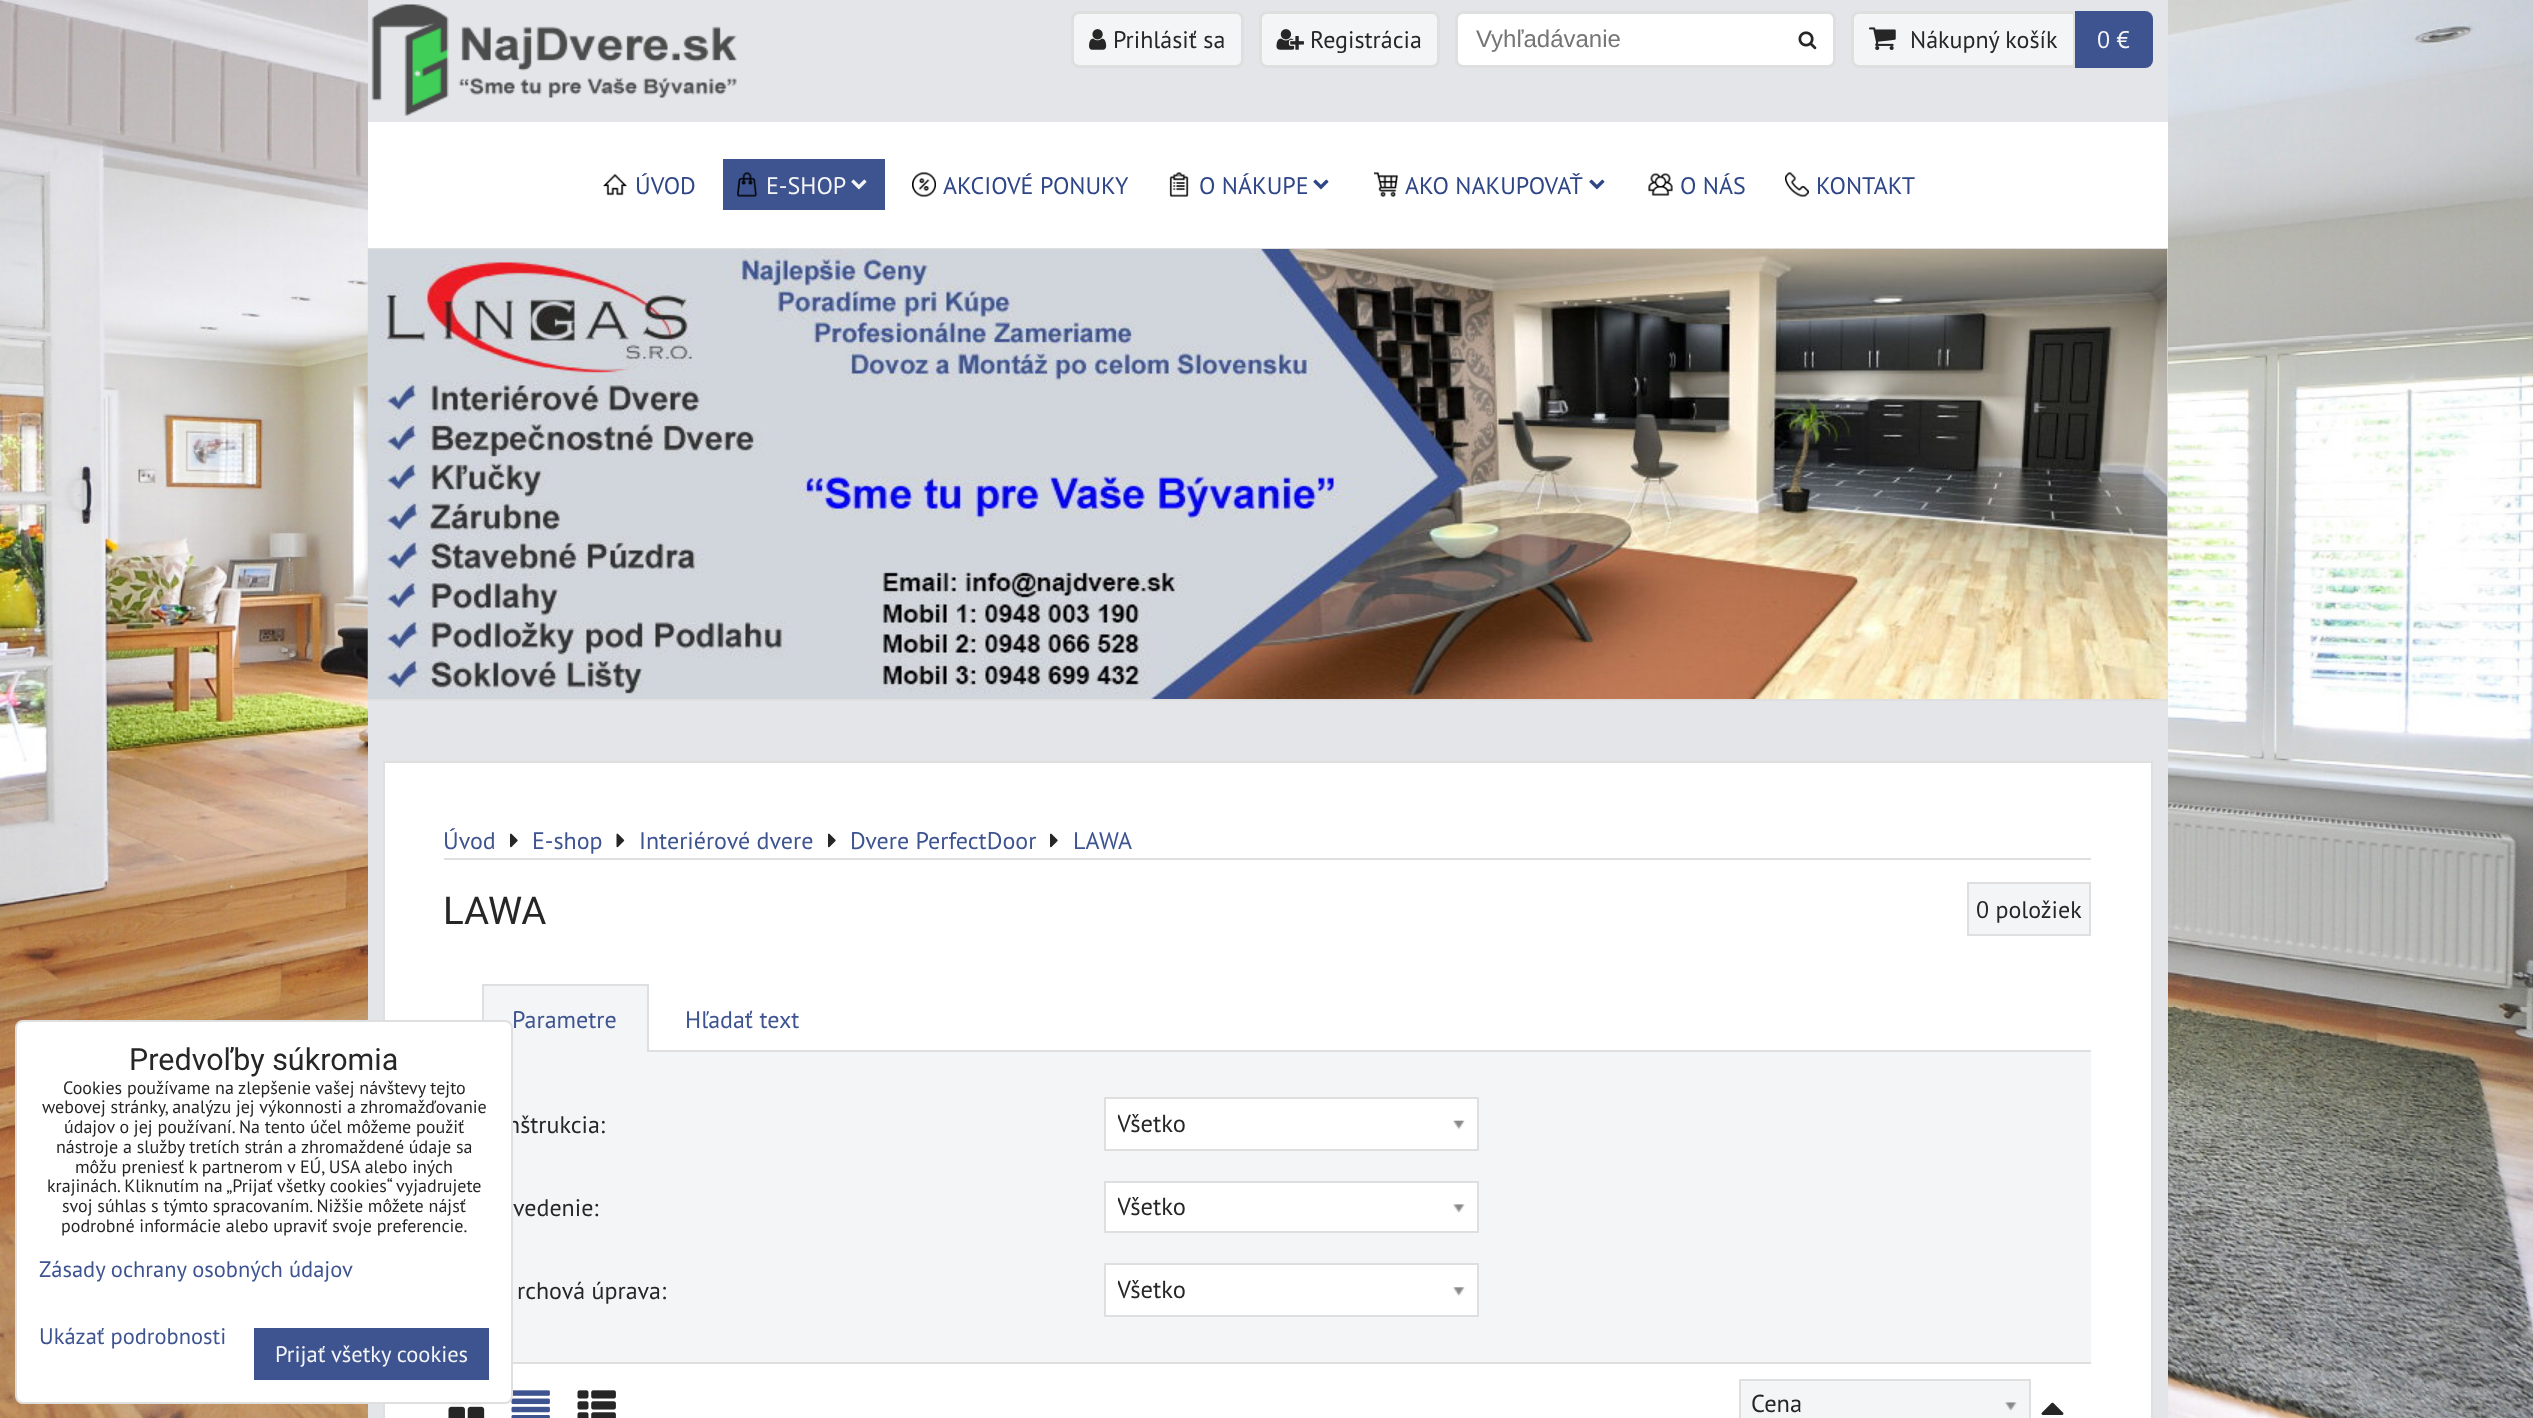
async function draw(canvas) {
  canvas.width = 2533
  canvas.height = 1418
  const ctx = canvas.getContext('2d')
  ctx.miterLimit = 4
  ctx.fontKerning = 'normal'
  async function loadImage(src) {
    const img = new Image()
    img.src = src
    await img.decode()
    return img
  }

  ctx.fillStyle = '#fff'
  ctx.fillRect(0, 0, 2533, 1418)
  ctx.drawImage(await loadImage('image0.png'), 0, 0, 2533, 1418)
  ctx.fillStyle = '#e3e5e9'
  ctx.fillRect(368, 0, 1800, 1418)
  ctx.fillStyle = '#fff'
  ctx.beginPath()
  ctx.rect(384, 762, 1768, 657)
  ctx.fill()
  ctx.strokeStyle = '#dfdfdf'
  ctx.lineWidth = 2
  ctx.stroke()
  ctx.fillStyle = '#f4f5f6'
  ctx.fillRect(484, 986, 163, 66)
  ctx.fillRect(513, 1052, 1578, 310)
  ctx.font = '24px PT Sans'
  ctx.fillStyle = '#262626'
  ctx.fillText('nštrukcia:', 507, 1133)
  ctx.drawImage(await loadImage('image22.png'), 511, 1390, 39, 28)
  ctx.fillStyle = '#fff'
  ctx.beginPath()
  ctx.roundRect(16, 1021, 496, 382, 7)
  ctx.fill()
  ctx.stroke()
  ctx.font = '30.5px Roboto'
  ctx.fillStyle = '#262626'
  ctx.fillText('Predvoľby súkromia', 129, 1070)
  ctx.font = '18px PT Sans'
  ctx.fillText('Cookies používame na zlepšenie vašej návštevy tejto', 63, 1094)
  ctx.fillText('webovej stránky, analýzu jej výkonnosti a zhromažďovanie', 42, 1113)
  ctx.fillText('údajov o jej používaní. Na tento účel môžeme použiť', 64, 1133)
  ctx.fillText('nástroje a služby tretích strán a zhromaždené údaje sa', 56, 1153)
  ctx.fillText('môžu preniesť k partnerom v EÚ, USA alebo iných', 75, 1173)
  ctx.fillText('krajinách. Kliknutím na „Prijať všetky cookies“ vyjadrujete', 47, 1192)
  ctx.fillText('svoj súhlas s týmto spracovaním. Nižšie môžete nájsť', 62, 1212)
  ctx.fillText('podrobné informácie alebo upraviť svoje preferencie.', 61, 1232)
  ctx.font = '22.5px PT Sans'
  ctx.fillStyle = '#3e5490'
  ctx.fillText('Zásady ochrany osobných údajov', 39, 1277)
  ctx.fillText('Ukázať podrobnosti', 39, 1344)
  ctx.fillRect(254, 1328, 235, 52)
  ctx.fillStyle = '#f4f5f6'
  ctx.fillText('Prijať všetky cookies', 275, 1362)
  ctx.drawImage(await loadImage('image1.png'), 371, 4, 366, 112)
  ctx.beginPath()
  ctx.roundRect(1072.5, 12.5, 170, 54, 6.5)
  ctx.fill()
  ctx.lineWidth = 3
  ctx.stroke()
  ctx.drawImage(await loadImage('image2.png'), 1089, 29, 18, 21)
  ctx.font = '24px PT Sans'
  ctx.fillStyle = '#262626'
  ctx.fillText('Prihlásiť sa', 1113, 48)
  ctx.fillStyle = '#f4f5f6'
  ctx.beginPath()
  ctx.roundRect(1260.5, 12.5, 178, 54, 6.5)
  ctx.fill()
  ctx.stroke()
  ctx.drawImage(await loadImage('image3.png'), 1276, 29, 28, 21)
  ctx.fillStyle = '#262626'
  ctx.fillText('Registrácia', 1310, 48)
  ctx.fillStyle = '#fff'
  ctx.beginPath()
  ctx.roundRect(1456.5, 12.5, 378, 54, 6.5)
  ctx.fill()
  ctx.stroke()
  ctx.font = '24px Liberation Sans'
  ctx.fillStyle = '#757575'
  ctx.fillText('Vyhľadávanie', 1476, 47)
  ctx.drawImage(await loadImage('image4.png'), 1798, 31, 19, 19)
  ctx.fillStyle = '#f4f5f6'
  ctx.beginPath()
  ctx.roundRect(1852.5, 12.5, 299, 54, 6.5)
  ctx.fill()
  ctx.stroke()
  ctx.drawImage(await loadImage('image5.png'), 1869, 27, 27, 23)
  ctx.font = '24px PT Sans'
  ctx.fillStyle = '#262626'
  ctx.fillText('Nákupný košík', 1910, 48)
  ctx.fillStyle = '#3e5490'
  ctx.beginPath()
  ctx.roundRect(2073, 11, 80, 57, [0, 8, 8, 0])
  ctx.fill()
  ctx.fillStyle = '#dfdfdf'
  ctx.fillRect(2073, 11, 2, 57)
  ctx.fillStyle = '#f4f5f6'
  ctx.fillText('0 €', 2097, 48)
  ctx.fillStyle = '#fff'
  ctx.fillRect(368, 122, 1800, 126)
  ctx.drawImage(await loadImage('image6.png'), 603, 173, 24, 23)
  ctx.fillStyle = '#2e4586'
  ctx.fillText('ÚVOD', 635, 194)
  ctx.fillStyle = '#3e5490'
  ctx.fillRect(723, 159, 162, 51)
  ctx.drawImage(await loadImage('image7.png'), 737, 172, 21, 25)
  ctx.fillStyle = '#f4f5f6'
  ctx.fillText('E-SHOP', 766, 194)
  ctx.drawImage(await loadImage('image8.png'), 851, 179, 16, 11)
  ctx.drawImage(await loadImage('image9.png'), 912, 172, 24, 25)
  ctx.fillStyle = '#2e4586'
  ctx.fillText('AKCIOVÉ PONUKY', 943, 194)
  ctx.drawImage(await loadImage('image10.png'), 1169, 172, 20, 25)
  ctx.fillText('O NÁKUPE', 1199, 194)
  ctx.drawImage(await loadImage('image11.png'), 1313, 179, 16, 11)
  ctx.drawImage(await loadImage('image12.png'), 1374, 172, 24, 25)
  ctx.fillText('AKO NAKUPOVAŤ', 1405, 194)
  ctx.drawImage(await loadImage('image11.png'), 1589, 179, 16, 11)
  ctx.drawImage(await loadImage('image13.png'), 1648, 173, 25, 23)
  ctx.fillText('O NÁS', 1680, 194)
  ctx.drawImage(await loadImage('image14.png'), 1785, 172, 24, 25)
  ctx.fillText('KONTAKT', 1816, 194)
  ctx.fillStyle = '#dfdfdf'
  ctx.fillRect(368, 248, 1800, 2)
  ctx.fillRect(368, 699, 1800, 2)
  ctx.drawImage(await loadImage('image15.png'), 367, 249, 1801, 450)
  ctx.fillStyle = '#3e5490'
  ctx.fillText('Úvod', 443, 849)
  ctx.drawImage(await loadImage('image16.png'), 510, 833, 8, 15)
  ctx.fillText('E-shop', 532, 849)
  ctx.drawImage(await loadImage('image17.png'), 616, 833, 9, 15)
  ctx.fillText('Interiérové dvere', 639, 849)
  ctx.drawImage(await loadImage('image16.png'), 828, 833, 8, 15)
  ctx.fillText('Dvere PerfectDoor', 850, 849)
  ctx.drawImage(await loadImage('image16.png'), 1050, 833, 8, 15)
  ctx.fillText('LAWA', 1073, 849)
  ctx.fillStyle = '#dfdfdf'
  ctx.fillRect(444, 858, 1647, 2)
  ctx.font = '38.5px Roboto'
  ctx.fillStyle = '#262626'
  ctx.fillText('LAWA', 443, 924)
  ctx.fillStyle = '#f4f5f6'
  ctx.beginPath()
  ctx.rect(1968, 883, 122, 52)
  ctx.fill()
  ctx.lineWidth = 2
  ctx.stroke()
  ctx.font = '24px PT Sans'
  ctx.fillStyle = '#262626'
  ctx.fillText('0 položiek', 1976, 918)
  ctx.fillStyle = '#dfdfdf'
  ctx.fillRect(482, 984, 166, 2)
  ctx.fillRect(647, 984, 2, 68)
  ctx.fillRect(482, 984, 2, 36)
  ctx.fillStyle = '#3e5490'
  ctx.fillText('Parametre', 512, 1028)
  ctx.fillText('Hľadať text', 685, 1028)
  ctx.fillStyle = '#dfdfdf'
  ctx.fillRect(649, 1050, 1442, 2)
  ctx.fillRect(513, 1362, 1578, 2)
  ctx.fillStyle = '#fff'
  ctx.beginPath()
  ctx.rect(1105, 1098, 373, 52)
  ctx.fill()
  ctx.stroke()
  ctx.save()
  ctx.beginPath()
  ctx.rect(1118, 1104, 321, 38)
  ctx.clip()
  ctx.font = '24.5px PT Sans'
  ctx.fillStyle = '#262626'
  ctx.fillText('Všetko', 1117, 1132)
  ctx.restore()
  ctx.drawImage(await loadImage('image18.png'), 1453, 1120, 12, 10)
  ctx.fillStyle = '#262626'
  ctx.fillText('vedenie:', 513, 1216)
  ctx.fillStyle = '#fff'
  ctx.beginPath()
  ctx.rect(1105, 1182, 373, 50)
  ctx.fill()
  ctx.stroke()
  ctx.save()
  ctx.beginPath()
  ctx.rect(1118, 1188, 321, 36)
  ctx.clip()
  ctx.font = '24.5px PT Sans'
  ctx.fillStyle = '#262626'
  ctx.fillText('Všetko', 1117, 1215)
  ctx.restore()
  ctx.drawImage(await loadImage('image19.png'), 1453, 1204, 12, 9)
  ctx.fillStyle = '#262626'
  ctx.fillText('rchová úprava:', 517, 1299)
  ctx.fillStyle = '#fff'
  ctx.beginPath()
  ctx.rect(1105, 1264, 373, 52)
  ctx.fill()
  ctx.stroke()
  ctx.save()
  ctx.beginPath()
  ctx.rect(1118, 1271, 321, 37)
  ctx.clip()
  ctx.font = '24.5px PT Sans'
  ctx.fillStyle = '#262626'
  ctx.fillText('Všetko', 1117, 1298)
  ctx.restore()
  ctx.drawImage(await loadImage('image20.png'), 1453, 1287, 12, 9)
  ctx.drawImage(await loadImage('image21.png'), 448, 1404, 37, 14)
  ctx.drawImage(await loadImage('image23.png'), 577, 1390, 39, 28)
  ctx.fillStyle = '#f4f5f6'
  ctx.beginPath()
  ctx.rect(1740, 1380, 290, 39)
  ctx.fill()
  ctx.stroke()
  ctx.font = '24.5px PT Sans'
  ctx.fillStyle = '#262626'
  ctx.fillText('Cena', 1751, 1412)
  ctx.drawImage(await loadImage('image24.png'), 2005, 1402, 12, 9)
  ctx.drawImage(await loadImage('image25.png'), 2041, 1402, 23, 13)
}

draw(document.querySelector('canvas'))
